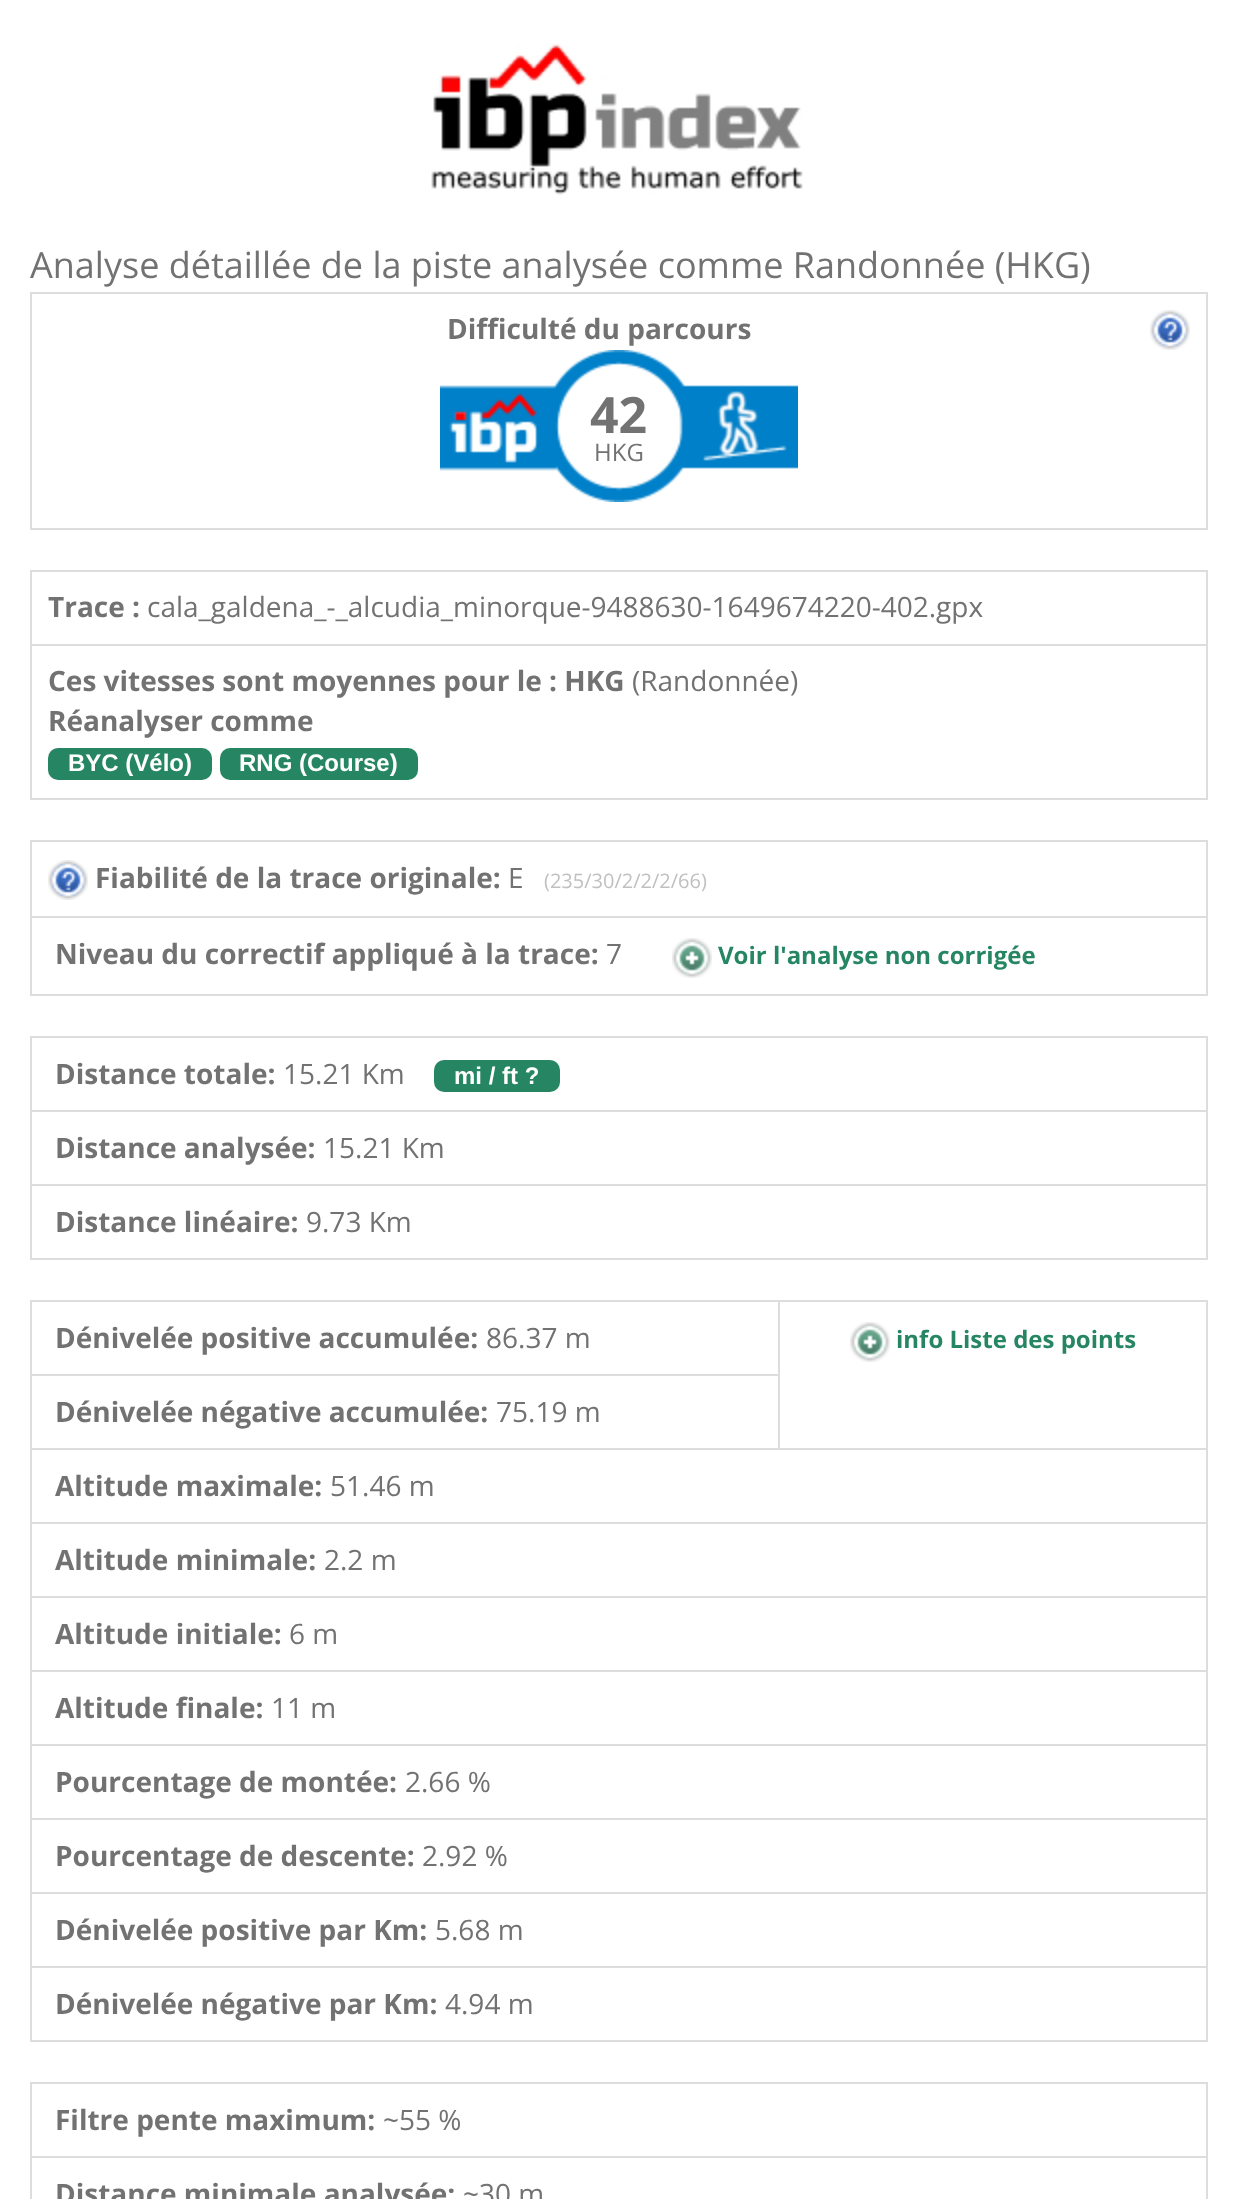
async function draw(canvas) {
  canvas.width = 1238
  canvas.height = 2199
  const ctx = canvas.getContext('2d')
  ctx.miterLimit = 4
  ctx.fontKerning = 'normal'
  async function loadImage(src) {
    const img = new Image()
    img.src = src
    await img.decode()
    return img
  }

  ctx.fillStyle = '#fff'
  ctx.fillRect(0, 0, 1238, 2199)
  ctx.drawImage(await loadImage('image0.png'), 431, 43, 372, 152)
  ctx.font = '36px Open Sans'
  ctx.fillStyle = '#727272'
  ctx.fillText('Analyse détaillée de la piste analysée comme Randonnée (HKG)', 30, 278)
  ctx.fillStyle = '#ddd'
  ctx.fillRect(30, 292, 1178, 2)
  ctx.fillRect(1206, 292, 2, 238)
  ctx.fillRect(30, 528, 1178, 2)
  ctx.fillRect(30, 292, 2, 238)
  ctx.font = 'bold 28px Open Sans'
  ctx.fillStyle = '#727272'
  ctx.fillText('Difficulté du parcours', 447, 339)
  ctx.drawImage(await loadImage('image1.png'), 1150, 310, 40, 40)
  ctx.drawImage(await loadImage('image2.png'), 440, 350, 358, 152)
  ctx.font = 'bold 50px Open Sans'
  ctx.fillText('42', 590, 433)
  ctx.font = '24px Open Sans'
  ctx.fillText('HKG', 594, 461)
  ctx.fillStyle = '#ddd'
  ctx.fillRect(30, 570, 1178, 2)
  ctx.fillRect(1206, 570, 2, 230)
  ctx.fillRect(30, 798, 1178, 2)
  ctx.fillRect(30, 570, 2, 230)
  ctx.font = 'bold 28px Open Sans'
  ctx.fillStyle = '#727272'
  ctx.fillText('Trace :', 48, 617)
  ctx.font = '28px Open Sans'
  ctx.fillText('cala_galdena_-_alcudia_minorque-9488630-1649674220-402.gpx', 147, 617)
  ctx.fillStyle = '#ddd'
  ctx.fillRect(30, 644, 1178, 2)
  ctx.font = 'bold 28px Open Sans'
  ctx.fillStyle = '#727272'
  ctx.fillText('Ces vitesses sont moyennes pour le : HKG', 48, 691)
  ctx.font = '28px Open Sans'
  ctx.fillText('(Randonnée)', 632, 691)
  ctx.font = 'bold 28px Open Sans'
  ctx.fillText('Réanalyser comme', 48, 731)
  ctx.fillStyle = '#268663'
  ctx.beginPath()
  ctx.roundRect(48, 748, 164, 32, 10)
  ctx.fill()
  ctx.font = 'bold 24px Liberation Sans'
  ctx.fillStyle = '#fff'
  ctx.fillText('BYC (Vélo)', 68, 771)
  ctx.fillStyle = '#268663'
  ctx.beginPath()
  ctx.roundRect(220, 748, 198, 32, 10)
  ctx.fill()
  ctx.fillStyle = '#fff'
  ctx.fillText('RNG (Course)', 239, 771)
  ctx.fillStyle = '#ddd'
  ctx.fillRect(30, 840, 1178, 2)
  ctx.fillRect(1206, 840, 2, 156)
  ctx.fillRect(30, 994, 1178, 2)
  ctx.fillRect(30, 840, 2, 156)
  ctx.drawImage(await loadImage('image1.png'), 48, 860, 40, 40)
  ctx.font = 'bold 28px Open Sans'
  ctx.fillStyle = '#727272'
  ctx.fillText('Fiabilité de la trace originale:', 95, 888)
  ctx.font = '28px Open Sans'
  ctx.fillText('E', 508, 888)
  ctx.font = '20px Open Sans'
  ctx.fillStyle = '#c0c0c0'
  ctx.fillText('(235/30/2/2/2/66)', 544, 888)
  ctx.fillStyle = '#ddd'
  ctx.fillRect(30, 916, 1178, 2)
  ctx.font = 'bold 28px Open Sans'
  ctx.fillStyle = '#727272'
  ctx.fillText('Niveau du correctif appliqué à la trace:', 55, 964)
  ctx.font = '28px Open Sans'
  ctx.fillText('7', 606, 964)
  ctx.drawImage(await loadImage('image3.png'), 672, 938, 40, 40)
  ctx.font = 'bold 24px Open Sans'
  ctx.fillStyle = '#268663'
  ctx.fillText('Voir l\'analyse non corrigée', 718, 964)
  ctx.fillStyle = '#ddd'
  ctx.fillRect(30, 1036, 1178, 2)
  ctx.fillRect(1206, 1036, 2, 224)
  ctx.fillRect(30, 1258, 1178, 2)
  ctx.fillRect(30, 1036, 2, 224)
  ctx.font = 'bold 28px Open Sans'
  ctx.fillStyle = '#727272'
  ctx.fillText('Distance totale:', 55, 1084)
  ctx.font = '28px Open Sans'
  ctx.fillText('15.21 Km', 283, 1084)
  ctx.fillStyle = '#268663'
  ctx.beginPath()
  ctx.roundRect(434, 1060, 126, 32, 10)
  ctx.fill()
  ctx.font = 'bold 24px Liberation Sans'
  ctx.fillStyle = '#fff'
  ctx.fillText('mi / ft ?', 454, 1084)
  ctx.fillStyle = '#ddd'
  ctx.fillRect(30, 1110, 1178, 2)
  ctx.font = 'bold 28px Open Sans'
  ctx.fillStyle = '#727272'
  ctx.fillText('Distance analysée:', 55, 1158)
  ctx.font = '28px Open Sans'
  ctx.fillText('15.21 Km', 323, 1158)
  ctx.fillStyle = '#ddd'
  ctx.fillRect(30, 1184, 1178, 2)
  ctx.font = 'bold 28px Open Sans'
  ctx.fillStyle = '#727272'
  ctx.fillText('Distance linéaire:', 55, 1232)
  ctx.font = '28px Open Sans'
  ctx.fillText('9.73 Km', 306, 1232)
  ctx.fillStyle = '#ddd'
  ctx.fillRect(30, 1300, 1178, 2)
  ctx.fillRect(1206, 1300, 2, 742)
  ctx.fillRect(30, 2040, 1178, 2)
  ctx.fillRect(30, 1300, 2, 742)
  ctx.font = 'bold 28px Open Sans'
  ctx.fillStyle = '#727272'
  ctx.fillText('Dénivelée positive accumulée:', 55, 1348)
  ctx.font = '28px Open Sans'
  ctx.fillText('86.37 m', 486, 1348)
  ctx.fillStyle = '#ddd'
  ctx.fillRect(30, 1374, 750, 2)
  ctx.fillRect(30, 1448, 1178, 2)
  ctx.fillRect(778, 1300, 2, 150)
  ctx.drawImage(await loadImage('image3.png'), 850, 1322, 40, 40)
  ctx.font = 'bold 24px Open Sans'
  ctx.fillStyle = '#268663'
  ctx.fillText('info Liste des points', 896, 1348)
  ctx.font = 'bold 28px Open Sans'
  ctx.fillStyle = '#727272'
  ctx.fillText('Dénivelée négative accumulée:', 55, 1422)
  ctx.font = '28px Open Sans'
  ctx.fillText('75.19 m', 496, 1422)
  ctx.font = 'bold 28px Open Sans'
  ctx.fillText('Altitude maximale:', 55, 1496)
  ctx.font = '28px Open Sans'
  ctx.fillText('51.46 m', 330, 1496)
  ctx.fillStyle = '#ddd'
  ctx.fillRect(30, 1522, 1178, 2)
  ctx.font = 'bold 28px Open Sans'
  ctx.fillStyle = '#727272'
  ctx.fillText('Altitude minimale:', 55, 1570)
  ctx.font = '28px Open Sans'
  ctx.fillText('2.2 m', 324, 1570)
  ctx.fillStyle = '#ddd'
  ctx.fillRect(30, 1596, 1178, 2)
  ctx.font = 'bold 28px Open Sans'
  ctx.fillStyle = '#727272'
  ctx.fillText('Altitude initiale:', 55, 1644)
  ctx.font = '28px Open Sans'
  ctx.fillText('6 m', 289, 1644)
  ctx.fillStyle = '#ddd'
  ctx.fillRect(30, 1670, 1178, 2)
  ctx.font = 'bold 28px Open Sans'
  ctx.fillStyle = '#727272'
  ctx.fillText('Altitude finale:', 55, 1718)
  ctx.font = '28px Open Sans'
  ctx.fillText('11 m', 271, 1718)
  ctx.fillStyle = '#ddd'
  ctx.fillRect(30, 1744, 1178, 2)
  ctx.font = 'bold 28px Open Sans'
  ctx.fillStyle = '#727272'
  ctx.fillText('Pourcentage de montée:', 55, 1792)
  ctx.font = '28px Open Sans'
  ctx.fillText('2.66 %', 405, 1792)
  ctx.fillStyle = '#ddd'
  ctx.fillRect(30, 1818, 1178, 2)
  ctx.font = 'bold 28px Open Sans'
  ctx.fillStyle = '#727272'
  ctx.fillText('Pourcentage de descente:', 55, 1866)
  ctx.font = '28px Open Sans'
  ctx.fillText('2.92 %', 422, 1866)
  ctx.fillStyle = '#ddd'
  ctx.fillRect(30, 1892, 1178, 2)
  ctx.font = 'bold 28px Open Sans'
  ctx.fillStyle = '#727272'
  ctx.fillText('Dénivelée positive par Km:', 55, 1940)
  ctx.font = '28px Open Sans'
  ctx.fillText('5.68 m', 435, 1940)
  ctx.fillStyle = '#ddd'
  ctx.fillRect(30, 1966, 1178, 2)
  ctx.font = 'bold 28px Open Sans'
  ctx.fillStyle = '#727272'
  ctx.fillText('Dénivelée négative par Km:', 55, 2014)
  ctx.font = '28px Open Sans'
  ctx.fillText('4.94 m', 445, 2014)
  ctx.fillStyle = '#ddd'
  ctx.fillRect(30, 2082, 1178, 2)
  ctx.fillRect(1206, 2082, 2, 117)
  ctx.fillRect(30, 2082, 2, 117)
  ctx.font = 'bold 28px Open Sans'
  ctx.fillStyle = '#727272'
  ctx.fillText('Filtre pente maximum:', 55, 2130)
  ctx.font = '28px Open Sans'
  ctx.fillText('~55 %', 383, 2130)
  ctx.fillStyle = '#ddd'
  ctx.fillRect(30, 2156, 1178, 2)
  ctx.font = 'bold 28px Open Sans'
  ctx.fillStyle = '#727272'
  ctx.fillText('Distance minimale analysée:', 55, 2204)
  ctx.font = '28px Open Sans'
  ctx.fillText('~30 m', 463, 2204)
}

draw(document.querySelector('canvas'))
